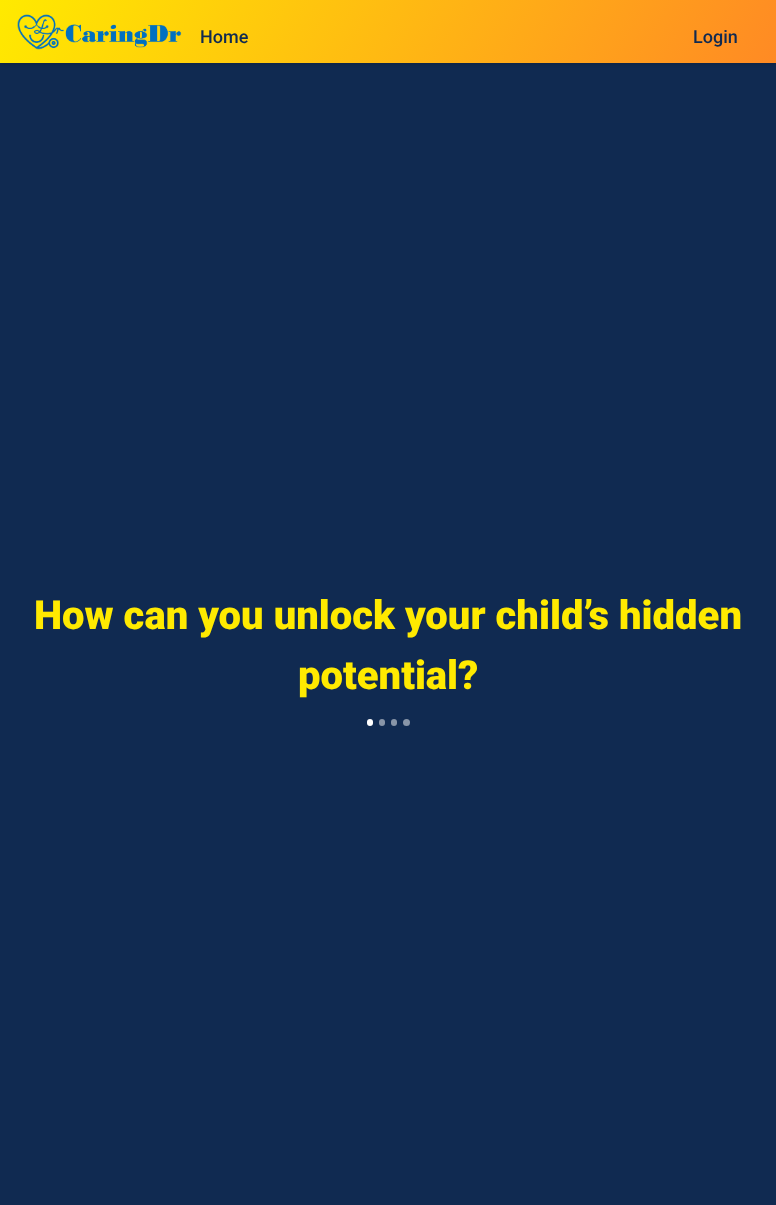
async function draw(canvas) {
  canvas.width = 776
  canvas.height = 1205
  const ctx = canvas.getContext('2d')
  ctx.miterLimit = 4
  ctx.fontKerning = 'normal'
  async function loadImage(src) {
    const img = new Image()
    img.src = src
    await img.decode()
    return img
  }
  let gradient

  ctx.fillStyle = '#102a51'
  ctx.fillRect(0, 0, 776, 1205)
  ctx.fillStyle = '#00000029'
  ctx.filter = 'blur(2.5px)'
  ctx.beginPath()
  ctx.rect(0, 2, 776, 63)
  ctx.fill()
  ctx.filter = 'none'
  gradient = ctx.createLinearGradient(83, -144, 693, 207)
  gradient.addColorStop(0, '#ffea00')
  gradient.addColorStop(1, '#ff8a24')
  ctx.fillStyle = gradient
  ctx.fillRect(0, 0, 776, 63)
  ctx.drawImage(await loadImage('image0.png'), 17, 14, 165, 36)
  ctx.font = '500 18px Roboto'
  ctx.fillStyle = '#102a51'
  ctx.fillText('Home', 200, 43)
  ctx.fillText('Login', 693, 43)
  ctx.font = '900 40px Roboto'
  ctx.fillStyle = '#ffea00'
  ctx.fillText('How can you unlock your child’s hidden', 34, 629)
  ctx.fillText('potential?', 298, 689)
  ctx.fillStyle = '#fff'
  ctx.beginPath()
  ctx.roundRect(367, 719, 6, 7, 3)
  ctx.fill()
  ctx.fillStyle = '#8895a8'
  ctx.beginPath()
  ctx.roundRect(379, 719, 6, 7, 3)
  ctx.fill()
  ctx.beginPath()
  ctx.roundRect(391, 719, 6, 7, 3)
  ctx.fill()
  ctx.beginPath()
  ctx.arc(406.5, 722.5, 3.5, 0, 2 * Math.PI)
  ctx.fill()
}

draw(document.querySelector('canvas'))
